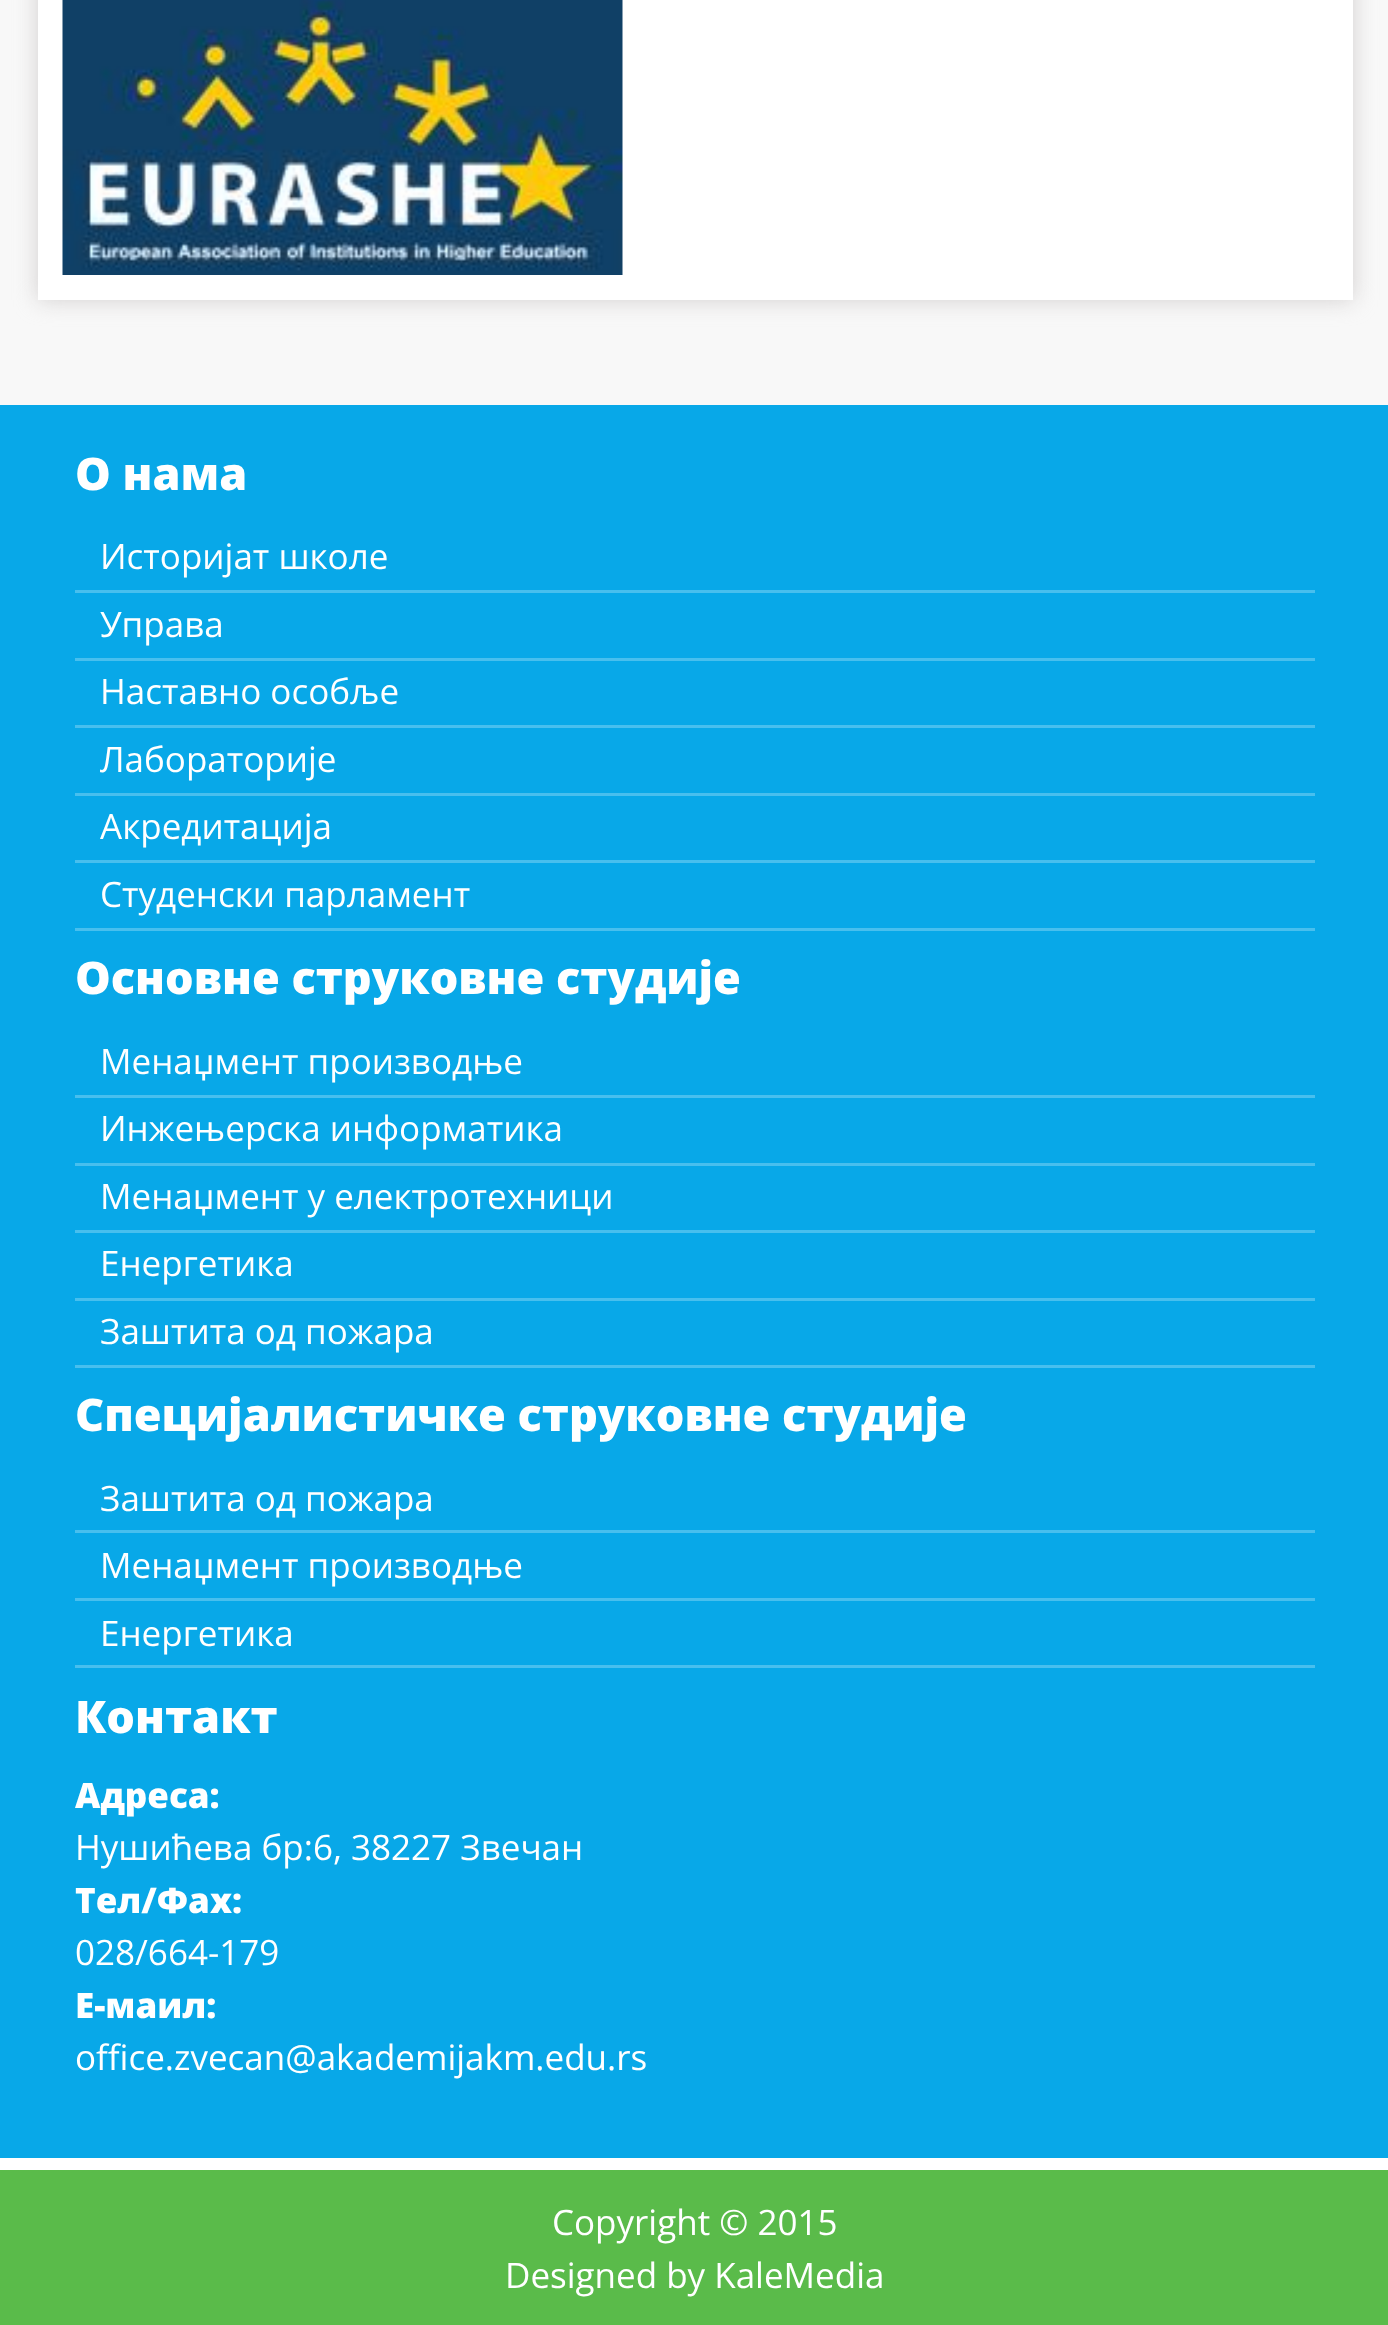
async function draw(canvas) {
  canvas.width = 1388
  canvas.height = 2325
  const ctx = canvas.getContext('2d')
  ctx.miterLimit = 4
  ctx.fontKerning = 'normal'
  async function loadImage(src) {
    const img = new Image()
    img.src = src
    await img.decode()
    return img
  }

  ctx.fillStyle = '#f8f8f8'
  ctx.fillRect(0, 0, 1388, 2325)
  ctx.fillStyle = '#d2cfcf'
  ctx.filter = 'blur(11px)'
  ctx.beginPath()
  ctx.rect(38, -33, 1315, 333)
  ctx.fill()
  ctx.filter = 'none'
  ctx.fillStyle = '#fff'
  ctx.fillRect(38, 0, 1315, 300)
  ctx.drawImage(await loadImage('image0.png'), 62, 0, 561, 275)
  ctx.fillStyle = '#08a8e8'
  ctx.fillRect(0, 405, 1388, 1753)
  ctx.font = '800 45px Open Sans'
  ctx.fillStyle = '#fff'
  ctx.fillText('О нама', 75, 490)
  ctx.fillStyle = '#48bfee'
  ctx.fillRect(75, 590, 1240, 3)
  ctx.font = '35px Open Sans'
  ctx.fillStyle = '#fff'
  ctx.fillText('Историјат школе', 100, 569)
  ctx.fillStyle = '#48bfee'
  ctx.fillRect(75, 658, 1240, 3)
  ctx.fillStyle = '#fff'
  ctx.fillText('Управа', 100, 637)
  ctx.fillStyle = '#48bfee'
  ctx.fillRect(75, 725, 1240, 3)
  ctx.fillStyle = '#fff'
  ctx.fillText('Наставно особље', 100, 704)
  ctx.fillStyle = '#48bfee'
  ctx.fillRect(75, 793, 1240, 3)
  ctx.fillStyle = '#fff'
  ctx.fillText('Лабораторије', 100, 772)
  ctx.fillStyle = '#48bfee'
  ctx.fillRect(75, 860, 1240, 3)
  ctx.fillStyle = '#fff'
  ctx.fillText('Акредитација', 100, 839)
  ctx.fillStyle = '#48bfee'
  ctx.fillRect(75, 928, 1240, 3)
  ctx.fillStyle = '#fff'
  ctx.fillText('Студенски парламент', 100, 907)
  ctx.font = '800 45px Open Sans'
  ctx.fillText('Основне струковне студије', 75, 994)
  ctx.fillStyle = '#48bfee'
  ctx.fillRect(75, 1095, 1240, 3)
  ctx.font = '35px Open Sans'
  ctx.fillStyle = '#fff'
  ctx.fillText('Менаџмент производње', 100, 1074)
  ctx.fillStyle = '#48bfee'
  ctx.fillRect(75, 1163, 1240, 3)
  ctx.fillStyle = '#fff'
  ctx.fillText('Инжењерска информатика', 100, 1141)
  ctx.fillStyle = '#48bfee'
  ctx.fillRect(75, 1230, 1240, 3)
  ctx.fillStyle = '#fff'
  ctx.fillText('Менаџмент у електротехници', 100, 1209)
  ctx.fillStyle = '#48bfee'
  ctx.fillRect(75, 1298, 1240, 3)
  ctx.fillStyle = '#fff'
  ctx.fillText('Енергетика', 100, 1276)
  ctx.fillStyle = '#48bfee'
  ctx.fillRect(75, 1365, 1240, 3)
  ctx.fillStyle = '#fff'
  ctx.fillText('Заштита од пожара', 100, 1344)
  ctx.font = '800 45px Open Sans'
  ctx.fillText('Специјалистичке струковне студије', 75, 1431)
  ctx.fillStyle = '#48bfee'
  ctx.fillRect(75, 1530, 1240, 3)
  ctx.font = '35px Open Sans'
  ctx.fillStyle = '#fff'
  ctx.fillText('Заштита од пожара', 100, 1511)
  ctx.fillStyle = '#48bfee'
  ctx.fillRect(75, 1598, 1240, 3)
  ctx.fillStyle = '#fff'
  ctx.fillText('Менаџмент производње', 100, 1578)
  ctx.fillStyle = '#48bfee'
  ctx.fillRect(75, 1665, 1240, 3)
  ctx.fillStyle = '#fff'
  ctx.fillText('Енергетика', 100, 1646)
  ctx.font = '800 45px Open Sans'
  ctx.fillText('Контакт', 75, 1733)
  ctx.font = '800 35px Open Sans'
  ctx.fillText('Адреса:', 75, 1808)
  ctx.font = '35px Open Sans'
  ctx.fillText('Нушићева бр:6, 38227 Звечан', 75, 1860)
  ctx.font = '800 35px Open Sans'
  ctx.fillText('Тел/Фаx:', 75, 1913)
  ctx.font = '35px Open Sans'
  ctx.fillText('028/664-179', 75, 1965)
  ctx.font = '800 35px Open Sans'
  ctx.fillText('Е-маил:', 75, 2018)
  ctx.font = '35px Open Sans'
  ctx.fillText('office.zvecan@akademijakm.edu.rs', 75, 2070)
  ctx.fillStyle = '#5abb4a'
  ctx.fillRect(0, 2170, 1388, 155)
  ctx.fillStyle = '#fff'
  ctx.fillRect(0, 2158, 1388, 12)
  ctx.fillText('Copyright © 2015', 552, 2235)
  ctx.fillText('Designed by KaleMedia', 505, 2288)
}

draw(document.querySelector('canvas'))
